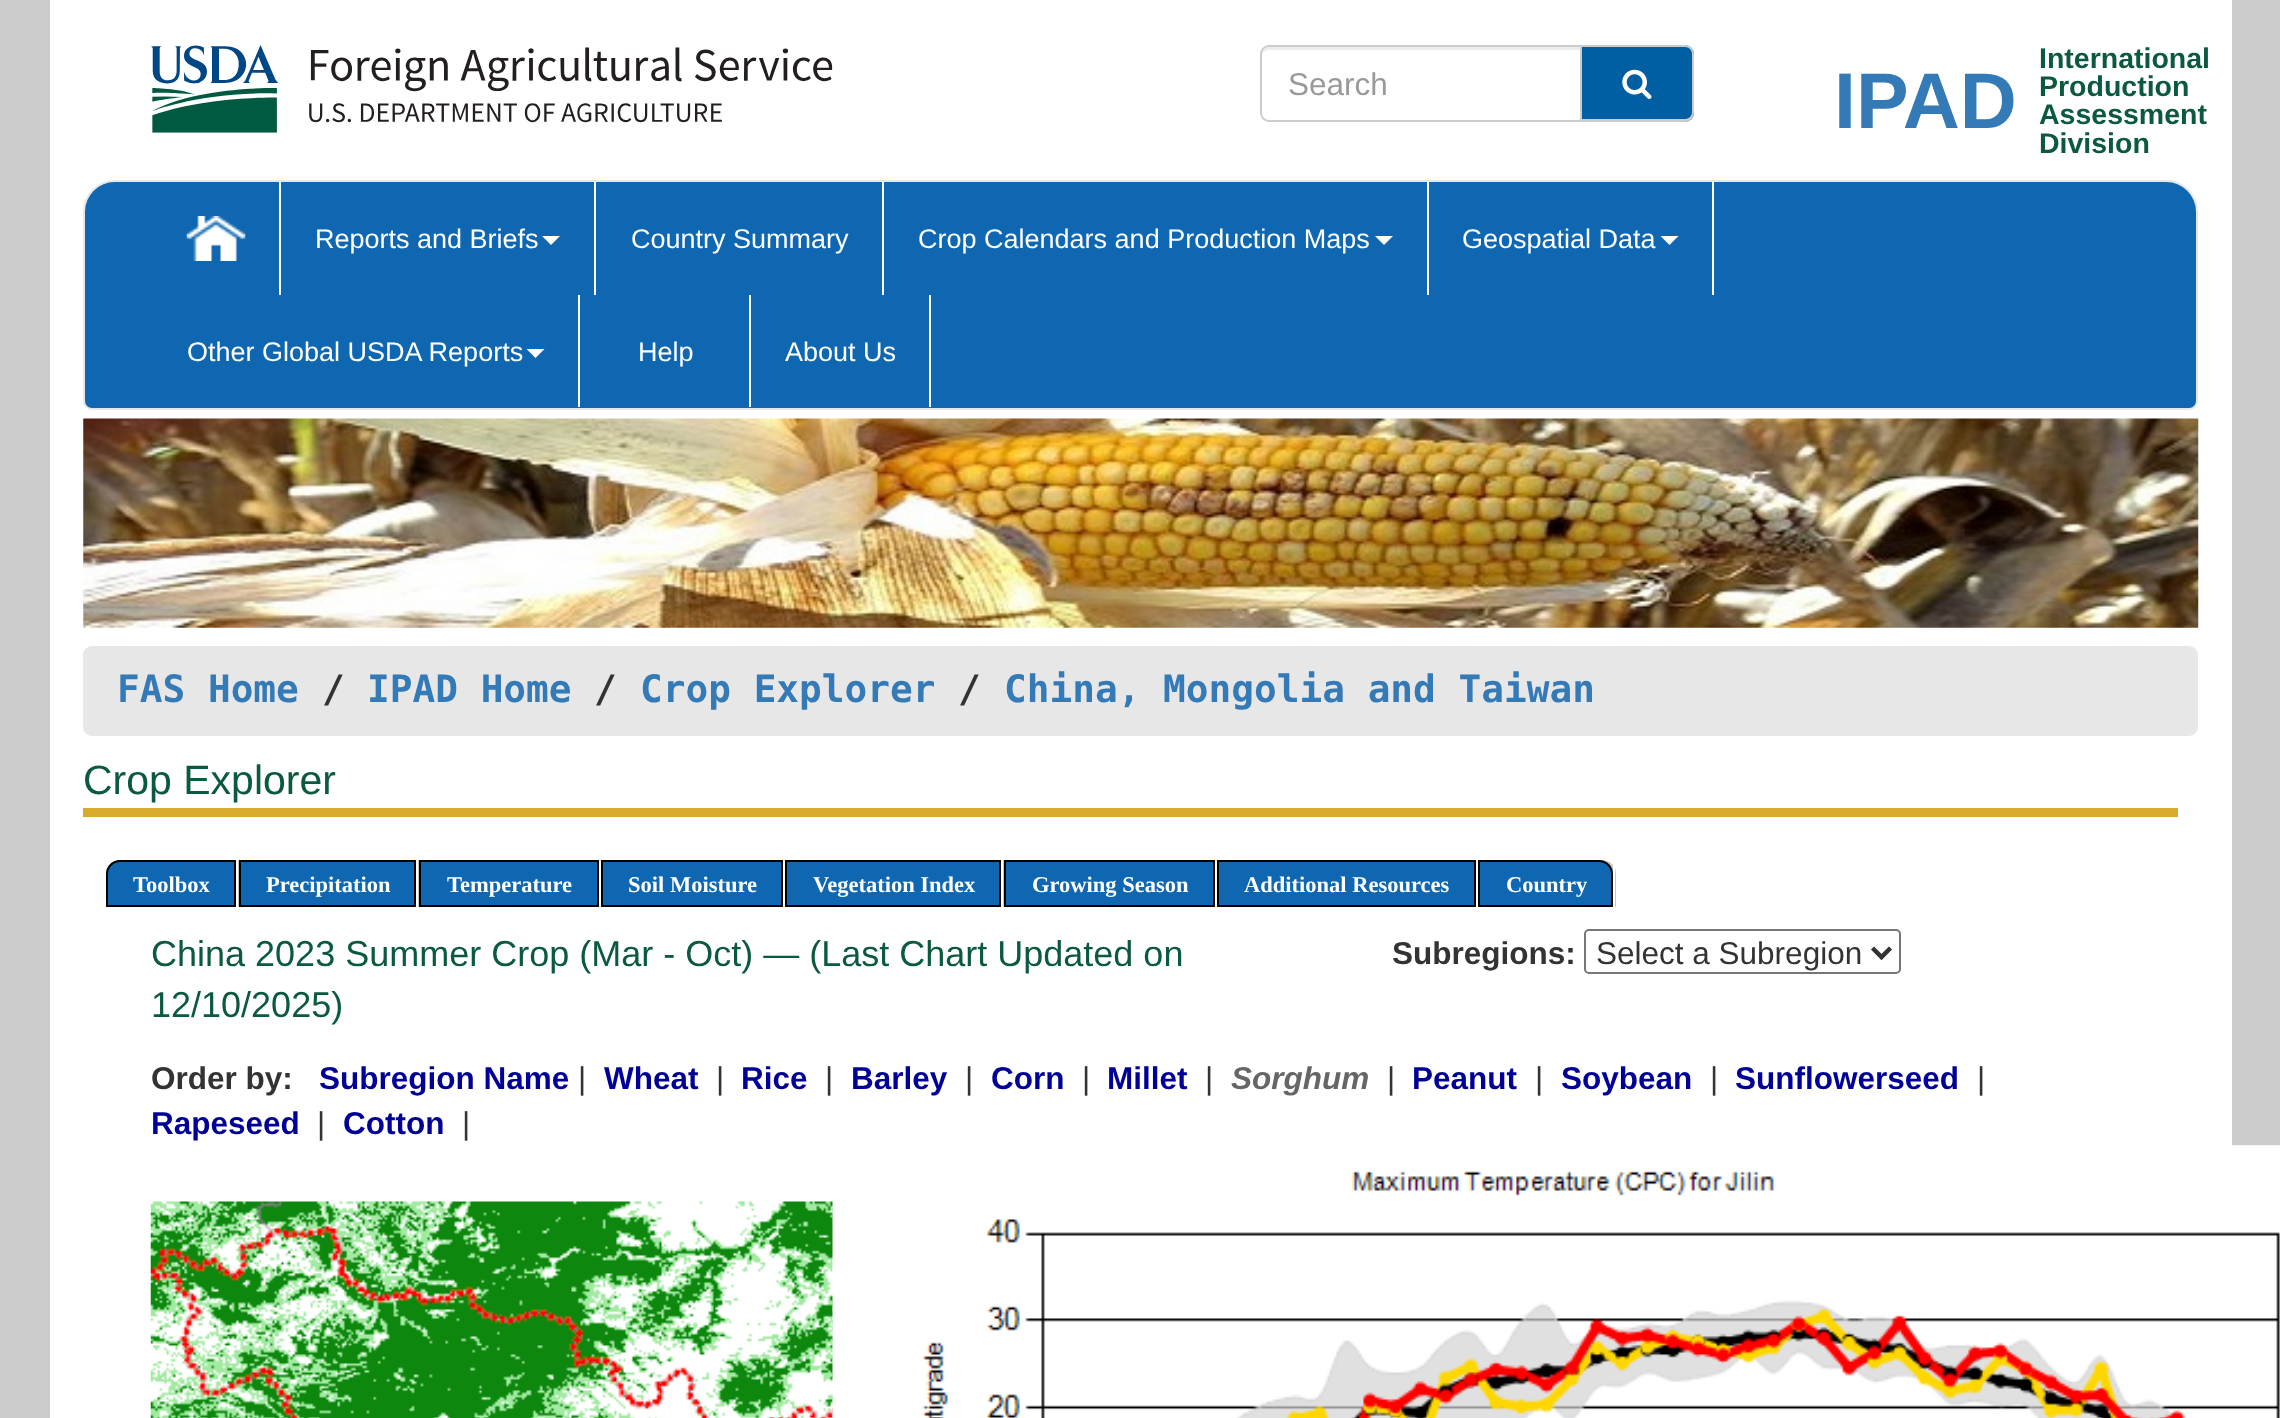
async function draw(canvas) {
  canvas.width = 2280
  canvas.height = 1418
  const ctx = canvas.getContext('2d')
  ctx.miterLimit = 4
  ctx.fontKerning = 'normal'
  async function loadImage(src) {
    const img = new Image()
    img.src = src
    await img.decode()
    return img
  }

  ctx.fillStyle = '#ccc'
  ctx.fillRect(0, 0, 2280, 1418)
  ctx.fillStyle = '#fff'
  ctx.fillRect(50, 0, 2182, 1418)
  ctx.drawImage(await loadImage('image0.png'), 151, 45, 682, 88)
  ctx.fillStyle = '#ececec'
  ctx.beginPath()
  ctx.moveTo(1269, 50)
  ctx.lineTo(1580, 50)
  ctx.lineTo(1580, 47)
  ctx.lineTo(1269, 47)
  ctx.bezierCurveTo(1264, 47, 1262, 52, 1262, 56)
  ctx.bezierCurveTo(1262, 53, 1265, 50, 1269, 50)
  ctx.closePath()
  ctx.fill()
  ctx.beginPath()
  ctx.roundRect(1261, 46, 320, 75, [8, 0, 0, 8])
  ctx.strokeStyle = '#ccc'
  ctx.lineWidth = 2
  ctx.stroke()
  ctx.font = '31.5px Liberation Sans'
  ctx.fillStyle = '#999'
  ctx.fillText('Search', 1288, 95)
  ctx.fillStyle = '#005ea2'
  ctx.beginPath()
  ctx.roundRect(1582, 45, 112, 77, [0, 9, 9, 0])
  ctx.fill()
  ctx.fillStyle = '#ccc'
  ctx.beginPath()
  ctx.moveTo(1582, 45)
  ctx.lineTo(1685, 45)
  ctx.bezierCurveTo(1690, 45, 1694, 49, 1694, 54)
  ctx.lineTo(1694, 112)
  ctx.bezierCurveTo(1694, 117, 1690, 122, 1685, 122)
  ctx.lineTo(1582, 122)
  ctx.closePath()
  ctx.moveTo(1582, 47)
  ctx.lineTo(1685, 47)
  ctx.bezierCurveTo(1689, 47, 1692, 50, 1692, 54)
  ctx.lineTo(1692, 112)
  ctx.bezierCurveTo(1692, 116, 1689, 119, 1685, 119)
  ctx.lineTo(1582, 119)
  ctx.closePath()
  ctx.fill('evenodd')
  ctx.drawImage(await loadImage('image1.png'), 1622, 69, 30, 30)
  ctx.font = 'bold 79px Liberation Sans'
  ctx.fillStyle = '#337ab7'
  ctx.fillText('IPAD', 1834, 128)
  ctx.font = 'bold 28.5px Liberation Sans'
  ctx.fillStyle = '#0b5941'
  ctx.fillText('International', 2039, 68)
  ctx.fillText('Production', 2039, 96)
  ctx.fillText('Assessment', 2039, 124)
  ctx.fillText('Division', 2039, 153)
  ctx.fillStyle = '#0e67b0'
  ctx.beginPath()
  ctx.roundRect(84, 181, 2113, 228, [31, 31, 8, 8])
  ctx.fill()
  ctx.strokeStyle = '#e7e7e7'
  ctx.stroke()
  ctx.fillStyle = '#fff'
  ctx.fillRect(279, 182, 2, 113)
  ctx.drawImage(await loadImage('image2.png'), 186, 216, 60, 45)
  ctx.fillRect(594, 182, 2, 113)
  ctx.font = '27px Liberation Sans'
  ctx.fillText('Reports and Briefs', 315, 248)
  ctx.beginPath()
  ctx.moveTo(542, 236)
  ctx.lineTo(560, 236)
  ctx.lineTo(551, 245)
  ctx.closePath()
  ctx.fill()
  ctx.fillRect(882, 182, 2, 113)
  ctx.fillText('Country Summary', 631, 248)
  ctx.fillRect(1427, 182, 2, 113)
  ctx.fillText('Crop Calendars and Production Maps', 918, 248)
  ctx.beginPath()
  ctx.moveTo(1375, 236)
  ctx.lineTo(1393, 236)
  ctx.lineTo(1384, 245)
  ctx.closePath()
  ctx.fill()
  ctx.fillRect(1712, 182, 2, 113)
  ctx.fillText('Geospatial Data', 1462, 248)
  ctx.beginPath()
  ctx.moveTo(1660.5, 236)
  ctx.lineTo(1678.5, 236)
  ctx.lineTo(1669.5, 245)
  ctx.closePath()
  ctx.fill()
  ctx.fillRect(578, 295, 2, 112)
  ctx.fillText('Other Global USDA Reports', 187, 361)
  ctx.beginPath()
  ctx.moveTo(526.5, 349)
  ctx.lineTo(544.5, 349)
  ctx.lineTo(535.5, 358)
  ctx.closePath()
  ctx.fill()
  ctx.fillRect(749, 295, 2, 112)
  ctx.fillText('Help', 638, 361)
  ctx.fillRect(929, 295, 2, 112)
  ctx.fillText('About Us', 785, 361)
  ctx.drawImage(await loadImage('image3.png'), 83, 418, 2116, 210)
  ctx.fillStyle = '#e7e7e7'
  ctx.beginPath()
  ctx.roundRect(83, 646, 2115, 90, 9)
  ctx.fill()
  ctx.font = 'bold 37.75px DejaVu Sans Mono'
  ctx.fillStyle = '#337ab7'
  ctx.fillText('FAS Home', 117, 702)
  ctx.fillStyle = '#333'
  ctx.fillText('/', 322, 702)
  ctx.fillStyle = '#337ab7'
  ctx.fillText('IPAD Home', 367, 702)
  ctx.fillStyle = '#333'
  ctx.fillText('/', 594, 702)
  ctx.fillStyle = '#337ab7'
  ctx.fillText('Crop Explorer', 640, 702)
  ctx.fillStyle = '#333'
  ctx.fillText('/', 958, 702)
  ctx.fillStyle = '#337ab7'
  ctx.fillText('China, Mongolia and Taiwan', 1004, 702)
  ctx.fillStyle = '#d8ab2d'
  ctx.fillRect(83, 808, 2095, 9)
  ctx.font = '41px Liberation Sans'
  ctx.fillStyle = '#0b5941'
  ctx.fillText('Crop Explorer', 83, 794)
  ctx.fillStyle = '#c8c8c8'
  ctx.beginPath()
  ctx.roundRect(106, 860, 133, 47, [14, 0, 0, 0])
  ctx.fill()
  ctx.fillStyle = '#fff'
  ctx.fillRect(236, 860, 2, 47)
  ctx.fillStyle = '#0e67b0'
  ctx.beginPath()
  ctx.roundRect(107, 861, 128, 45, [13, 0, 0, 0])
  ctx.fill()
  ctx.strokeStyle = '#000'
  ctx.stroke()
  ctx.font = 'bold 22.5px Liberation Serif'
  ctx.fillStyle = '#fff'
  ctx.fillText('Toolbox', 133, 892)
  ctx.fillStyle = '#c8c8c8'
  ctx.fillRect(418, 860, 1, 47)
  ctx.fillStyle = '#0e67b0'
  ctx.beginPath()
  ctx.rect(240, 861, 175, 45)
  ctx.fill()
  ctx.stroke()
  ctx.fillStyle = '#fff'
  ctx.fillText('Precipitation', 266, 892)
  ctx.fillStyle = '#0e67b0'
  ctx.beginPath()
  ctx.rect(420, 861, 178, 45)
  ctx.fill()
  ctx.stroke()
  ctx.fillStyle = '#fff'
  ctx.fillText('Temperature', 447, 892)
  ctx.fillStyle = '#0e67b0'
  ctx.beginPath()
  ctx.rect(602, 861, 180, 45)
  ctx.fill()
  ctx.stroke()
  ctx.fillStyle = '#fff'
  ctx.fillText('Soil Moisture', 628, 892)
  ctx.fillStyle = '#c8c8c8'
  ctx.fillRect(1003, 860, 1, 47)
  ctx.fillStyle = '#0e67b0'
  ctx.beginPath()
  ctx.rect(786, 861, 214, 45)
  ctx.fill()
  ctx.stroke()
  ctx.fillStyle = '#fff'
  ctx.fillText('Vegetation Index', 813, 892)
  ctx.fillStyle = '#0e67b0'
  ctx.beginPath()
  ctx.rect(1005, 861, 209, 45)
  ctx.fill()
  ctx.stroke()
  ctx.fillStyle = '#fff'
  ctx.fillText('Growing Season', 1032, 892)
  ctx.fillStyle = '#0e67b0'
  ctx.beginPath()
  ctx.rect(1218, 861, 257, 45)
  ctx.fill()
  ctx.stroke()
  ctx.fillStyle = '#fff'
  ctx.fillText('Additional Resources', 1244, 892)
  ctx.fillStyle = '#c8c8c8'
  ctx.beginPath()
  ctx.roundRect(1478, 860, 138, 47, [0, 14, 0, 0])
  ctx.fill()
  ctx.fillStyle = '#fff'
  ctx.fillRect(1613, 866, 2, 41)
  ctx.fillStyle = '#0e67b0'
  ctx.beginPath()
  ctx.roundRect(1479, 861, 133, 45, [0, 13, 0, 0])
  ctx.fill()
  ctx.stroke()
  ctx.fillStyle = '#fff'
  ctx.fillText('Country', 1506, 892)
  ctx.font = '36px Liberation Sans'
  ctx.fillStyle = '#0b5941'
  ctx.fillText('China 2023 Summer Crop (Mar - Oct) — (Last Chart Updated on', 151, 966)
  ctx.fillText('12/10/2025)', 151, 1017)
  ctx.font = 'bold 31.5px Liberation Sans'
  ctx.fillStyle = '#333'
  ctx.fillText('Subregions:', 1392, 964)
  ctx.beginPath()
  ctx.roundRect(1585, 930, 315, 43, 4)
  ctx.strokeStyle = '#767676'
  ctx.stroke()
  ctx.beginPath()
  ctx.moveTo(1872.5, 948)
  ctx.lineTo(1881.5, 957)
  ctx.lineTo(1890.5, 948)
  ctx.strokeStyle = '#333'
  ctx.lineWidth = 4.5
  ctx.stroke()
  ctx.font = '31.5px Liberation Sans'
  ctx.fillText('Select a Subregion', 1596, 964)
  ctx.font = 'bold 31.5px Liberation Sans'
  ctx.fillText('Order by:', 151, 1089)
  ctx.fillStyle = '#009'
  ctx.fillText('Subregion Name', 319, 1089)
  ctx.font = '31.5px Liberation Sans'
  ctx.fillStyle = '#333'
  ctx.fillText('|', 578, 1089)
  ctx.font = 'bold 31.5px Liberation Sans'
  ctx.fillStyle = '#009'
  ctx.fillText('Wheat', 604, 1089)
  ctx.font = '31.5px Liberation Sans'
  ctx.fillStyle = '#333'
  ctx.fillText('|', 716, 1089)
  ctx.font = 'bold 31.5px Liberation Sans'
  ctx.fillStyle = '#009'
  ctx.fillText('Rice', 741, 1089)
  ctx.font = '31.5px Liberation Sans'
  ctx.fillStyle = '#333'
  ctx.fillText('|', 825, 1089)
  ctx.font = 'bold 31.5px Liberation Sans'
  ctx.fillStyle = '#009'
  ctx.fillText('Barley', 851, 1089)
  ctx.font = '31.5px Liberation Sans'
  ctx.fillStyle = '#333'
  ctx.fillText('|', 965, 1089)
  ctx.font = 'bold 31.5px Liberation Sans'
  ctx.fillStyle = '#009'
  ctx.fillText('Corn', 991, 1089)
  ctx.font = '31.5px Liberation Sans'
  ctx.fillStyle = '#333'
  ctx.fillText('|', 1082, 1089)
  ctx.font = 'bold 31.5px Liberation Sans'
  ctx.fillStyle = '#009'
  ctx.fillText('Millet', 1107, 1089)
  ctx.font = '31.5px Liberation Sans'
  ctx.fillStyle = '#333'
  ctx.fillText('|', 1205, 1089)
  ctx.font = 'italic bold 31.5px Liberation Sans'
  ctx.fillStyle = '#666'
  ctx.fillText('Sorghum', 1231, 1089)
  ctx.font = '31.5px Liberation Sans'
  ctx.fillStyle = '#333'
  ctx.fillText('|', 1387, 1089)
  ctx.font = 'bold 31.5px Liberation Sans'
  ctx.fillStyle = '#009'
  ctx.fillText('Peanut', 1412, 1089)
  ctx.font = '31.5px Liberation Sans'
  ctx.fillStyle = '#333'
  ctx.fillText('|', 1535, 1089)
  ctx.font = 'bold 31.5px Liberation Sans'
  ctx.fillStyle = '#009'
  ctx.fillText('Soybean', 1561, 1089)
  ctx.font = '31.5px Liberation Sans'
  ctx.fillStyle = '#333'
  ctx.fillText('|', 1710, 1089)
  ctx.font = 'bold 31.5px Liberation Sans'
  ctx.fillStyle = '#009'
  ctx.fillText('Sunflowerseed', 1735, 1089)
  ctx.font = '31.5px Liberation Sans'
  ctx.fillStyle = '#333'
  ctx.fillText('|', 1977, 1089)
  ctx.font = 'bold 31.5px Liberation Sans'
  ctx.fillStyle = '#009'
  ctx.fillText('Rapeseed', 151, 1134)
  ctx.font = '31.5px Liberation Sans'
  ctx.fillStyle = '#333'
  ctx.fillText('|', 317, 1134)
  ctx.font = 'bold 31.5px Liberation Sans'
  ctx.fillStyle = '#009'
  ctx.fillText('Cotton', 343, 1134)
  ctx.font = '31.5px Liberation Sans'
  ctx.fillStyle = '#333'
  ctx.fillText('|', 462, 1134)
  ctx.drawImage(await loadImage('image4.png'), 150, 1201, 683, 217)
  ctx.drawImage(await loadImage('image5.png'), 832, 1145, 1448, 273)
}

draw(document.querySelector('canvas'))
